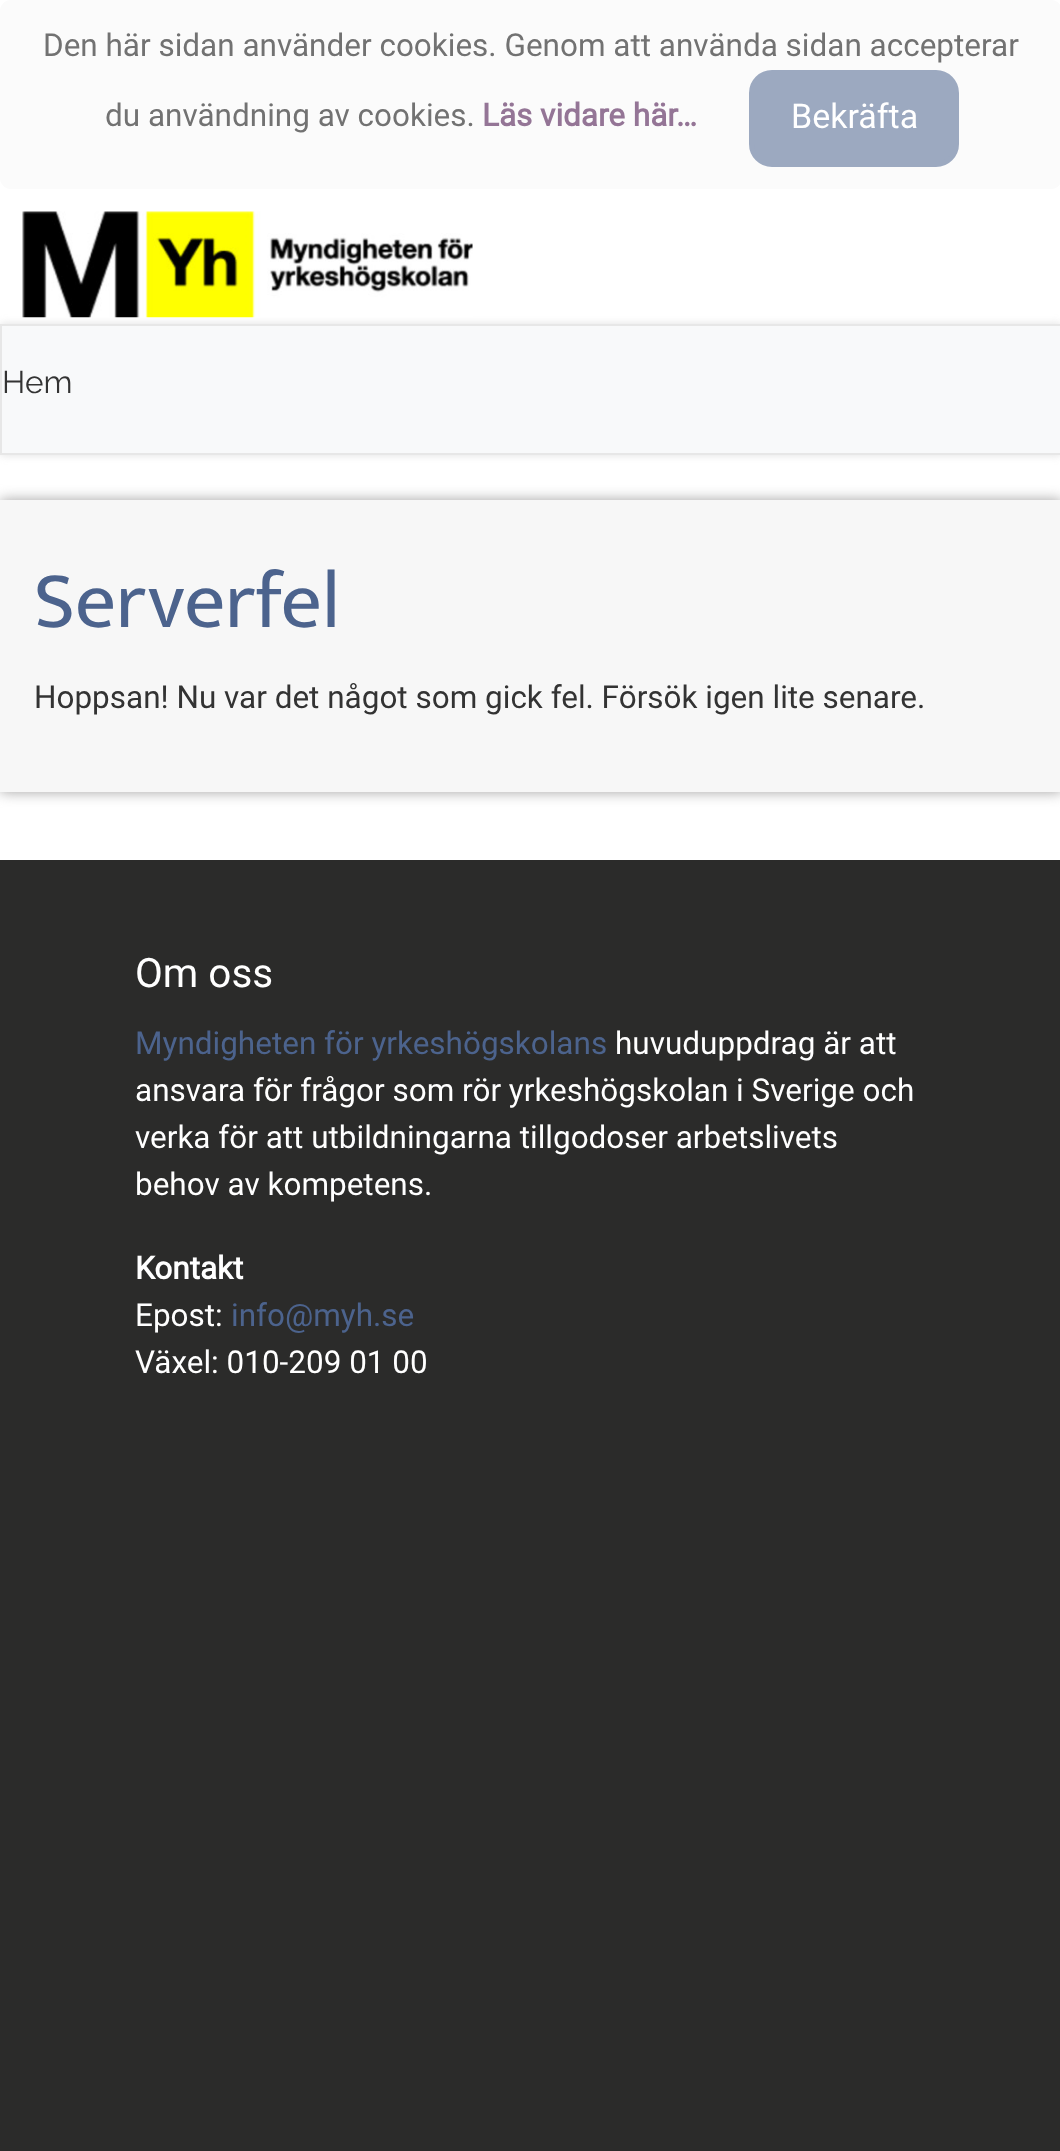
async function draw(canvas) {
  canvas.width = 1060
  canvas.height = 2151
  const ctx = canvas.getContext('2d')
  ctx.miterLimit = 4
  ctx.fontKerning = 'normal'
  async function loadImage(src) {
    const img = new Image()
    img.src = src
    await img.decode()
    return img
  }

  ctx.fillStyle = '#2b2b2a'
  ctx.fillRect(0, 0, 1060, 2151)
  ctx.fillStyle = '#fff'
  ctx.fillRect(0, 0, 1060, 860)
  ctx.fillStyle = '#fbfbfb'
  ctx.beginPath()
  ctx.roundRect(0, 0, 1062, 189, 11)
  ctx.fill()
  ctx.font = '31.5px Roboto'
  ctx.fillStyle = '#727272'
  ctx.fillText('Den här sidan använder cookies. Genom att använda sidan accepterar', 43, 56)
  ctx.fillText('du användning av cookies.', 105, 126)
  ctx.font = 'bold 31.5px Roboto'
  ctx.fillStyle = '#947596'
  ctx.fillText('Läs vidare här…', 482, 126)
  ctx.fillStyle = '#9ca9c0'
  ctx.beginPath()
  ctx.roundRect(751.5, 72.5, 205, 92, 20.5)
  ctx.fill()
  ctx.strokeStyle = '#9ca9c0'
  ctx.lineWidth = 5
  ctx.stroke()
  ctx.font = '34px Roboto'
  ctx.fillStyle = '#fff'
  ctx.fillText('Bekräfta', 791, 128)
  ctx.fillStyle = '#e0e0e0'
  ctx.filter = 'blur(4.5px)'
  ctx.beginPath()
  ctx.rect(0, 324, 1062, 131)
  ctx.fill()
  ctx.filter = 'none'
  ctx.drawImage(await loadImage('image0.png'), 22, 211, 451, 107)
  ctx.fillStyle = '#f8f9fa'
  ctx.beginPath()
  ctx.rect(1, 325, 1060, 129)
  ctx.fill()
  ctx.strokeStyle = '#e7e7e7'
  ctx.lineWidth = 2
  ctx.stroke()
  ctx.font = '31.5px Raleway'
  ctx.fillStyle = '#333'
  ctx.fillText('Hem', 2, 393)
  ctx.fillStyle = '#a3a2a2'
  ctx.filter = 'blur(7px)'
  ctx.beginPath()
  ctx.rect(0, 500, 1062, 292)
  ctx.fill()
  ctx.filter = 'none'
  ctx.fillStyle = '#f7f7f7'
  ctx.fillRect(0, 500, 1060, 292)
  ctx.font = '81px Mukta'
  ctx.fillStyle = '#4c638d'
  ctx.fillText('Serverfel', 34, 627)
  ctx.font = '31.5px Roboto'
  ctx.fillStyle = '#333'
  ctx.fillText('Hoppsan! Nu var det något som gick fel. Försök igen lite senare.', 34, 708)
  ctx.font = '40.5px Roboto'
  ctx.fillStyle = '#fff'
  ctx.fillText('Om oss', 135, 987)
  ctx.font = '31.5px Roboto'
  ctx.fillStyle = '#4c638d'
  ctx.fillText('Myndigheten för yrkeshögskolans', 135, 1054)
  ctx.fillStyle = '#fff'
  ctx.fillText('huvuduppdrag är att', 615, 1054)
  ctx.fillText('ansvara för frågor som rör yrkeshögskolan i Sverige och', 135, 1101)
  ctx.fillText('verka för att utbildningarna tillgodoser arbetslivets', 135, 1148)
  ctx.fillText('behov av kompetens.', 135, 1195)
  ctx.font = 'bold 31.5px Roboto'
  ctx.fillText('Kontakt', 135, 1279)
  ctx.font = '31.5px Roboto'
  ctx.fillText('Epost:', 135, 1326)
  ctx.fillStyle = '#4c638d'
  ctx.fillText('info@myh.se', 231, 1326)
  ctx.fillStyle = '#fff'
  ctx.fillText('Växel: 010-209 01 00', 135, 1373)
}

draw(document.querySelector('canvas'))
